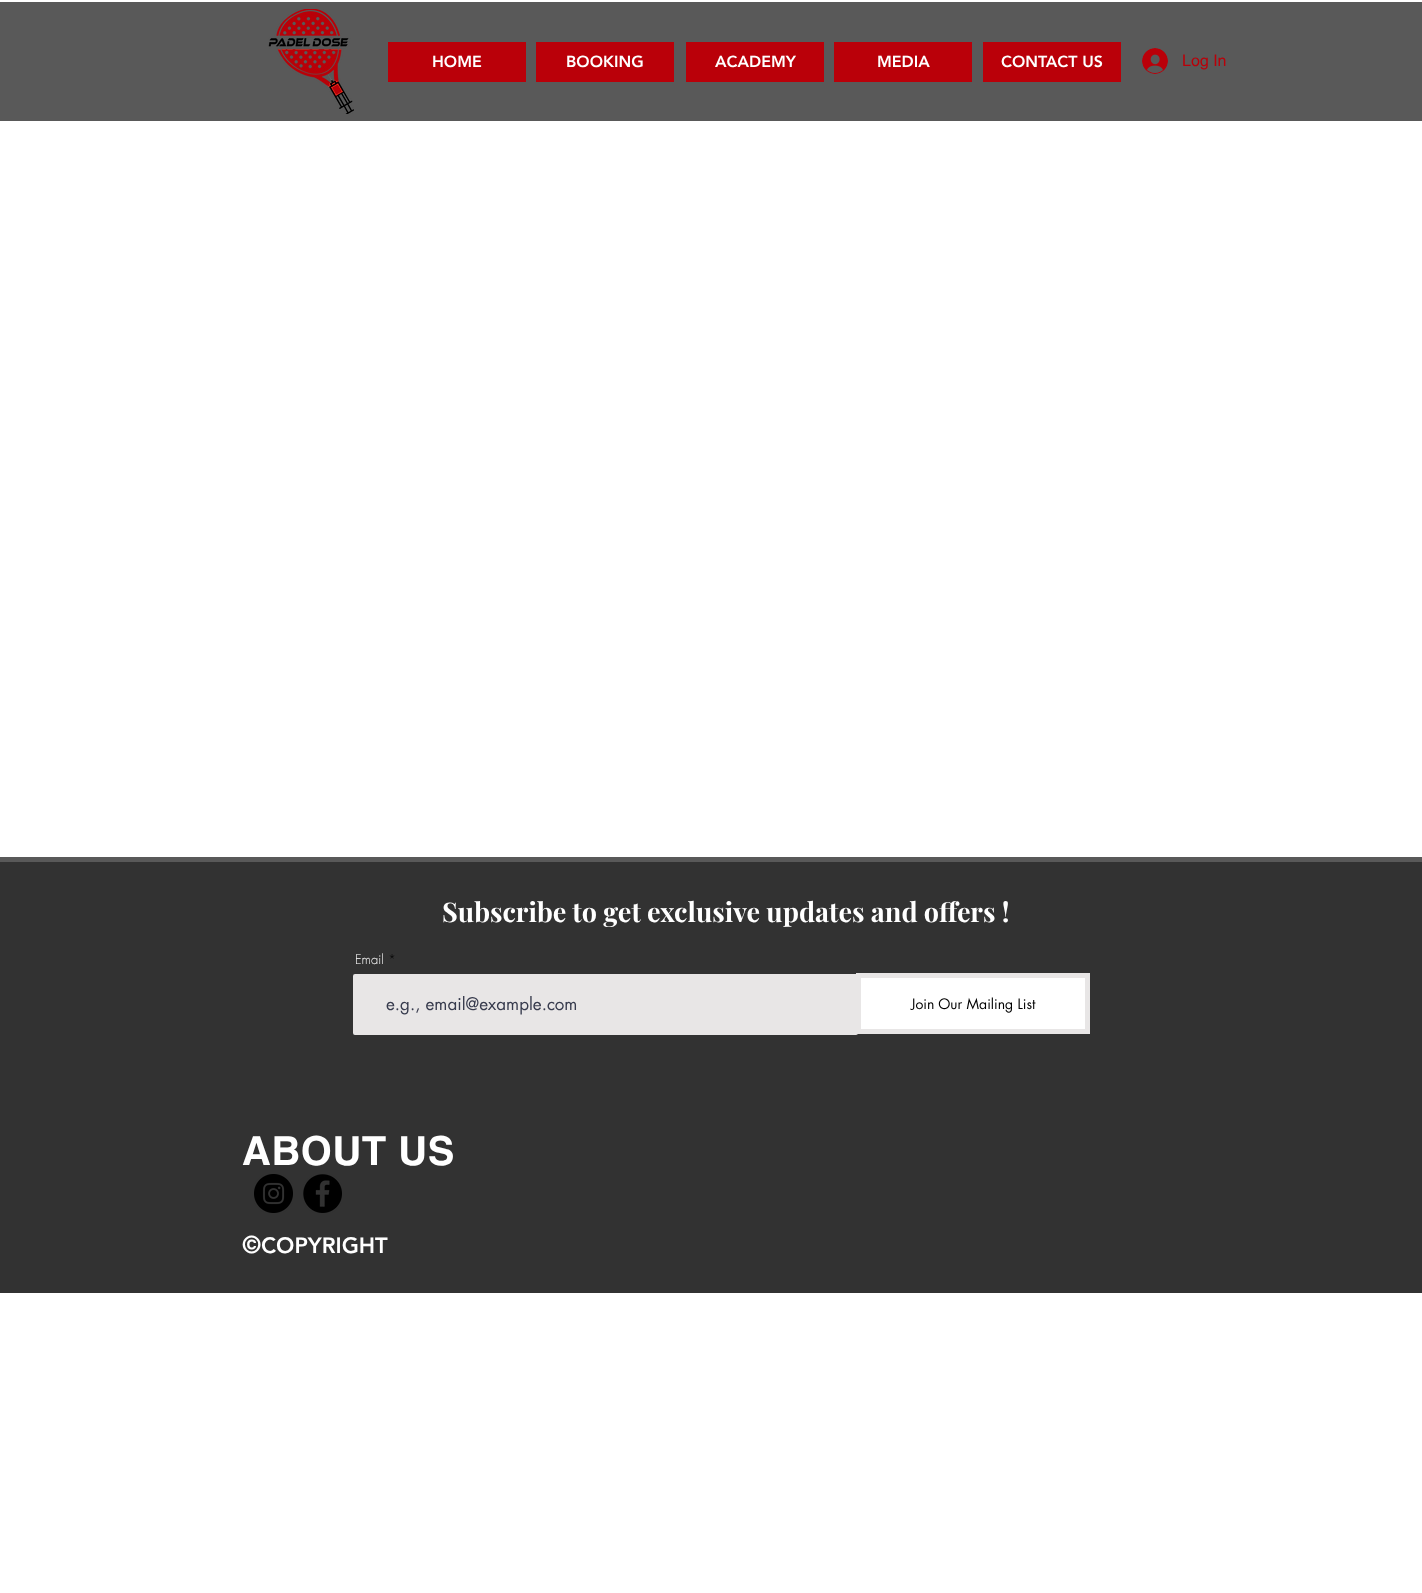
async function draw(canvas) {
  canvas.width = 1422
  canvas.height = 1593
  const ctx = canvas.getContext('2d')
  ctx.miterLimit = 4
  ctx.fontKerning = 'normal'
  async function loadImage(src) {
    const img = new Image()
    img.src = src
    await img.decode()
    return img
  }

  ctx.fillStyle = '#fff'
  ctx.fillRect(0, 0, 1422, 1593)
  ctx.fillStyle = '#595959'
  ctx.fillRect(0, 2, 1422, 119)
  ctx.drawImage(await loadImage('image0.png'), 268, 9, 86, 105)
  ctx.fillStyle = '#ba0009'
  ctx.fillRect(388, 42, 138, 40)
  ctx.font = '900 16px "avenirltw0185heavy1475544"'
  ctx.fillStyle = '#fff'
  ctx.fillText('HOME', 432, 67)
  ctx.fillStyle = '#ba0009'
  ctx.fillRect(536, 42, 138, 40)
  ctx.fillStyle = '#fff'
  ctx.fillText('BOOKING', 566, 67)
  ctx.fillStyle = '#ba0009'
  ctx.fillRect(686, 42, 138, 40)
  ctx.fillStyle = '#fff'
  ctx.fillText('ACADEMY', 715, 67)
  ctx.fillStyle = '#ba0009'
  ctx.fillRect(834, 42, 138, 40)
  ctx.fillStyle = '#fff'
  ctx.fillText('MEDIA', 877, 67)
  ctx.fillStyle = '#ba0009'
  ctx.fillRect(983, 42, 138, 40)
  ctx.fillStyle = '#fff'
  ctx.fillText('CONTACT US', 1001, 67)
  ctx.drawImage(await loadImage('image1.png'), 1142, 48, 26, 26)
  ctx.font = '16px helvetica'
  ctx.fillStyle = '#ba0009'
  ctx.fillText('Log In', 1182, 66)
  ctx.fillStyle = '#323232'
  ctx.fillRect(0, 862, 1422, 431)
  ctx.fillStyle = '#595959'
  ctx.fillRect(0, 857, 1422, 5)
  ctx.font = 'bold 27px Playfair Display'
  ctx.fillStyle = '#fff'
  ctx.fillText('Subscribe to get exclusive updates and offers !', 442, 922)
  ctx.font = '300 13px futura'
  ctx.fillText('Email', 355, 964)
  ctx.fillStyle = '#000'
  ctx.fillText('*', 388, 964)
  ctx.fillStyle = '#e8e6e6'
  ctx.beginPath()
  ctx.roundRect(354.5, 975.5, 502, 58, 0.5)
  ctx.fill()
  ctx.strokeStyle = '#e8e6e6'
  ctx.lineWidth = 3
  ctx.stroke()
  ctx.font = '17px futura'
  ctx.fillStyle = '#373b4d'
  ctx.fillText('e.g., email@example.com', 386, 1010)
  ctx.fillStyle = '#fff'
  ctx.fillRect(861, 978, 224, 51)
  ctx.beginPath()
  ctx.moveTo(858.5, 975.5)
  ctx.lineTo(1087.5, 975.5)
  ctx.lineTo(1087.5, 1031.5)
  ctx.lineTo(858.5, 1031.5)
  ctx.closePath()
  ctx.lineWidth = 5
  ctx.stroke()
  ctx.font = '14px futura'
  ctx.fillStyle = '#000'
  ctx.fillText('Join Our Mailing List', 911, 1009)
  ctx.letterSpacing = '0.5px'
  ctx.font = 'bold 40px helvetica'
  ctx.fillStyle = '#fff'
  ctx.fillText('ABOUT US', 242, 1165)
  ctx.drawImage(await loadImage('image2.png'), 254, 1174, 39, 39)
  ctx.drawImage(await loadImage('image3.png'), 303, 1174, 39, 39)
  ctx.letterSpacing = '0px'
  ctx.font = '900 24px "avenirltw0185heavy1475544"'
  ctx.fillText('©', 242, 1253)
  ctx.font = '900 22px "avenirltw0185heavy1475544"'
  ctx.fillText('COPYRIGHT', 261, 1253)
}

draw(document.querySelector('canvas'))
